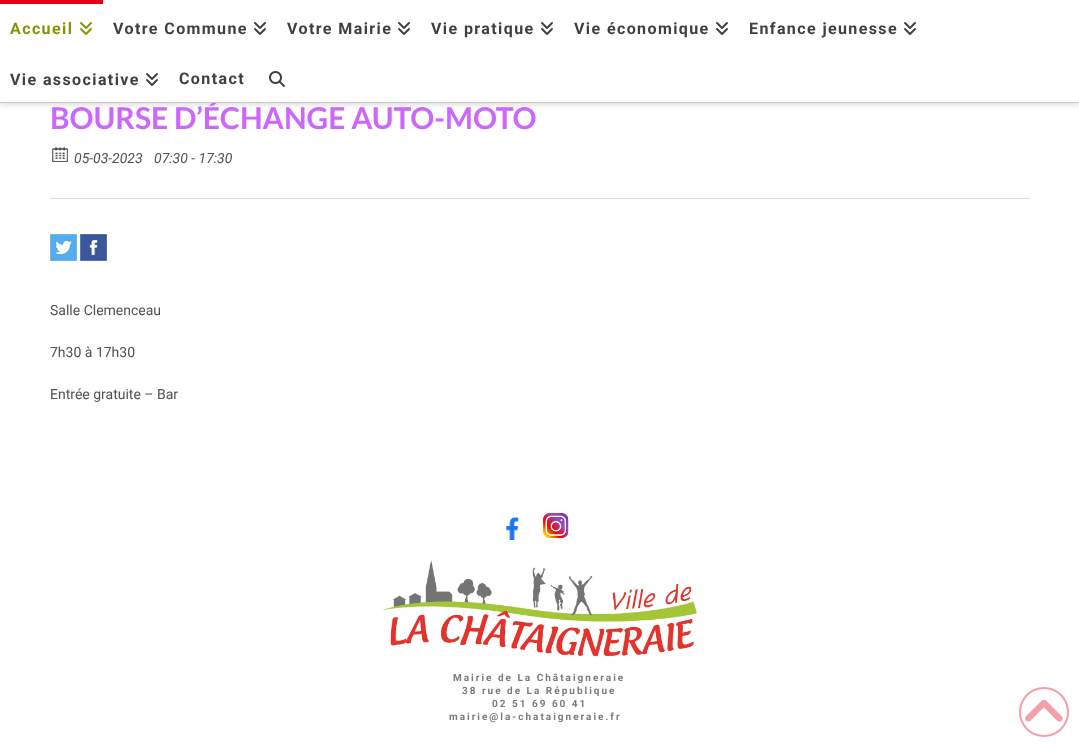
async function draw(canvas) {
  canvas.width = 1079
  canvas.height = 747
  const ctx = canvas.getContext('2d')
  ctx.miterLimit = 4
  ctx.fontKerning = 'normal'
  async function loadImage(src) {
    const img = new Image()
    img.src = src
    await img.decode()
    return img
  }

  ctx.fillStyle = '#fff'
  ctx.fillRect(0, 0, 1079, 747)
  ctx.fillStyle = '#00000021'
  ctx.filter = 'blur(2.5px)'
  ctx.beginPath()
  ctx.rect(0, 2, 1079, 103)
  ctx.fill()
  ctx.filter = 'none'
  ctx.fillStyle = '#fff'
  ctx.fillRect(0, 0, 1079, 102)
  ctx.font = 'bold 30px Lato'
  ctx.fillStyle = '#c6f'
  ctx.fillText('BOURSE D’ÉCHANGE AUTO-MOTO', 50, 129)
  ctx.fillStyle = '#ccc'
  ctx.fillRect(0, 102, 1079, 1)
  ctx.fillStyle = '#e2001a'
  ctx.fillRect(0, 0, 103, 4)
  ctx.letterSpacing = '1.4px'
  ctx.font = 'bold 16px Roboto'
  ctx.fillStyle = '#7f9600'
  ctx.fillText('Accueil', 10, 34)
  ctx.drawImage(await loadImage('image0.png'), 80, 22, 12, 13)
  ctx.fillStyle = '#3f3f3f'
  ctx.fillText('Votre Commune', 113, 34)
  ctx.drawImage(await loadImage('image1.png'), 254, 22, 12, 13)
  ctx.fillText('Votre Mairie', 287, 34)
  ctx.drawImage(await loadImage('image1.png'), 398, 22, 12, 13)
  ctx.fillText('Vie pratique', 431, 34)
  ctx.drawImage(await loadImage('image1.png'), 541, 22, 12, 13)
  ctx.fillText('Vie économique', 574, 34)
  ctx.drawImage(await loadImage('image1.png'), 716, 22, 12, 13)
  ctx.fillText('Enfance jeunesse', 749, 34)
  ctx.drawImage(await loadImage('image1.png'), 904, 22, 12, 13)
  ctx.fillText('Vie associative', 10, 85)
  ctx.drawImage(await loadImage('image1.png'), 146, 73, 12, 13)
  ctx.fillText('Contact', 179, 84)
  ctx.drawImage(await loadImage('image2.png'), 269, 71, 16, 16)
  ctx.drawImage(await loadImage('image3.png'), 52, 147, 16, 15)
  ctx.letterSpacing = '0px'
  ctx.font = 'italic 14px Roboto'
  ctx.fillStyle = '#515151'
  ctx.fillText('05-03-2023', 74, 163)
  ctx.fillText('07:30 - 17:30', 154, 163)
  ctx.fillStyle = '#ddd'
  ctx.fillRect(50, 198, 980, 1)
  ctx.drawImage(await loadImage('image4.png'), 50, 234, 27, 27)
  ctx.drawImage(await loadImage('image5.png'), 80, 234, 27, 27)
  ctx.font = '14px Roboto'
  ctx.fillStyle = '#515151'
  ctx.fillText('Salle Clemenceau', 50, 315)
  ctx.fillText('7h30 à 17h30', 50, 357)
  ctx.fillText('Entrée gratuite – Bar', 50, 399)
  ctx.drawImage(await loadImage('image6.png'), 505, 517, 14, 23)
  ctx.drawImage(await loadImage('image7.png'), 542, 512, 27, 27)
  ctx.drawImage(await loadImage('image8.png'), 382, 560, 315, 97)
  ctx.letterSpacing = '2px'
  ctx.font = 'bold 10px Roboto'
  ctx.fillStyle = '#7a7a7a'
  ctx.fillText('Mairie de La Châtaigneraie', 453, 681)
  ctx.fillText('38 rue de La République', 462, 694)
  ctx.fillText('02 51 69 60 41', 492, 707)
  ctx.fillText('mairie@la-chataigneraie.fr', 449, 720)
  ctx.beginPath()
  ctx.arc(1044, 712, 24, 0, 2 * Math.PI)
  ctx.strokeStyle = '#f49fa9'
  ctx.lineWidth = 2
  ctx.stroke()
  ctx.drawImage(await loadImage('image9.png'), 1025, 699, 38, 23)
}

draw(document.querySelector('canvas'))
